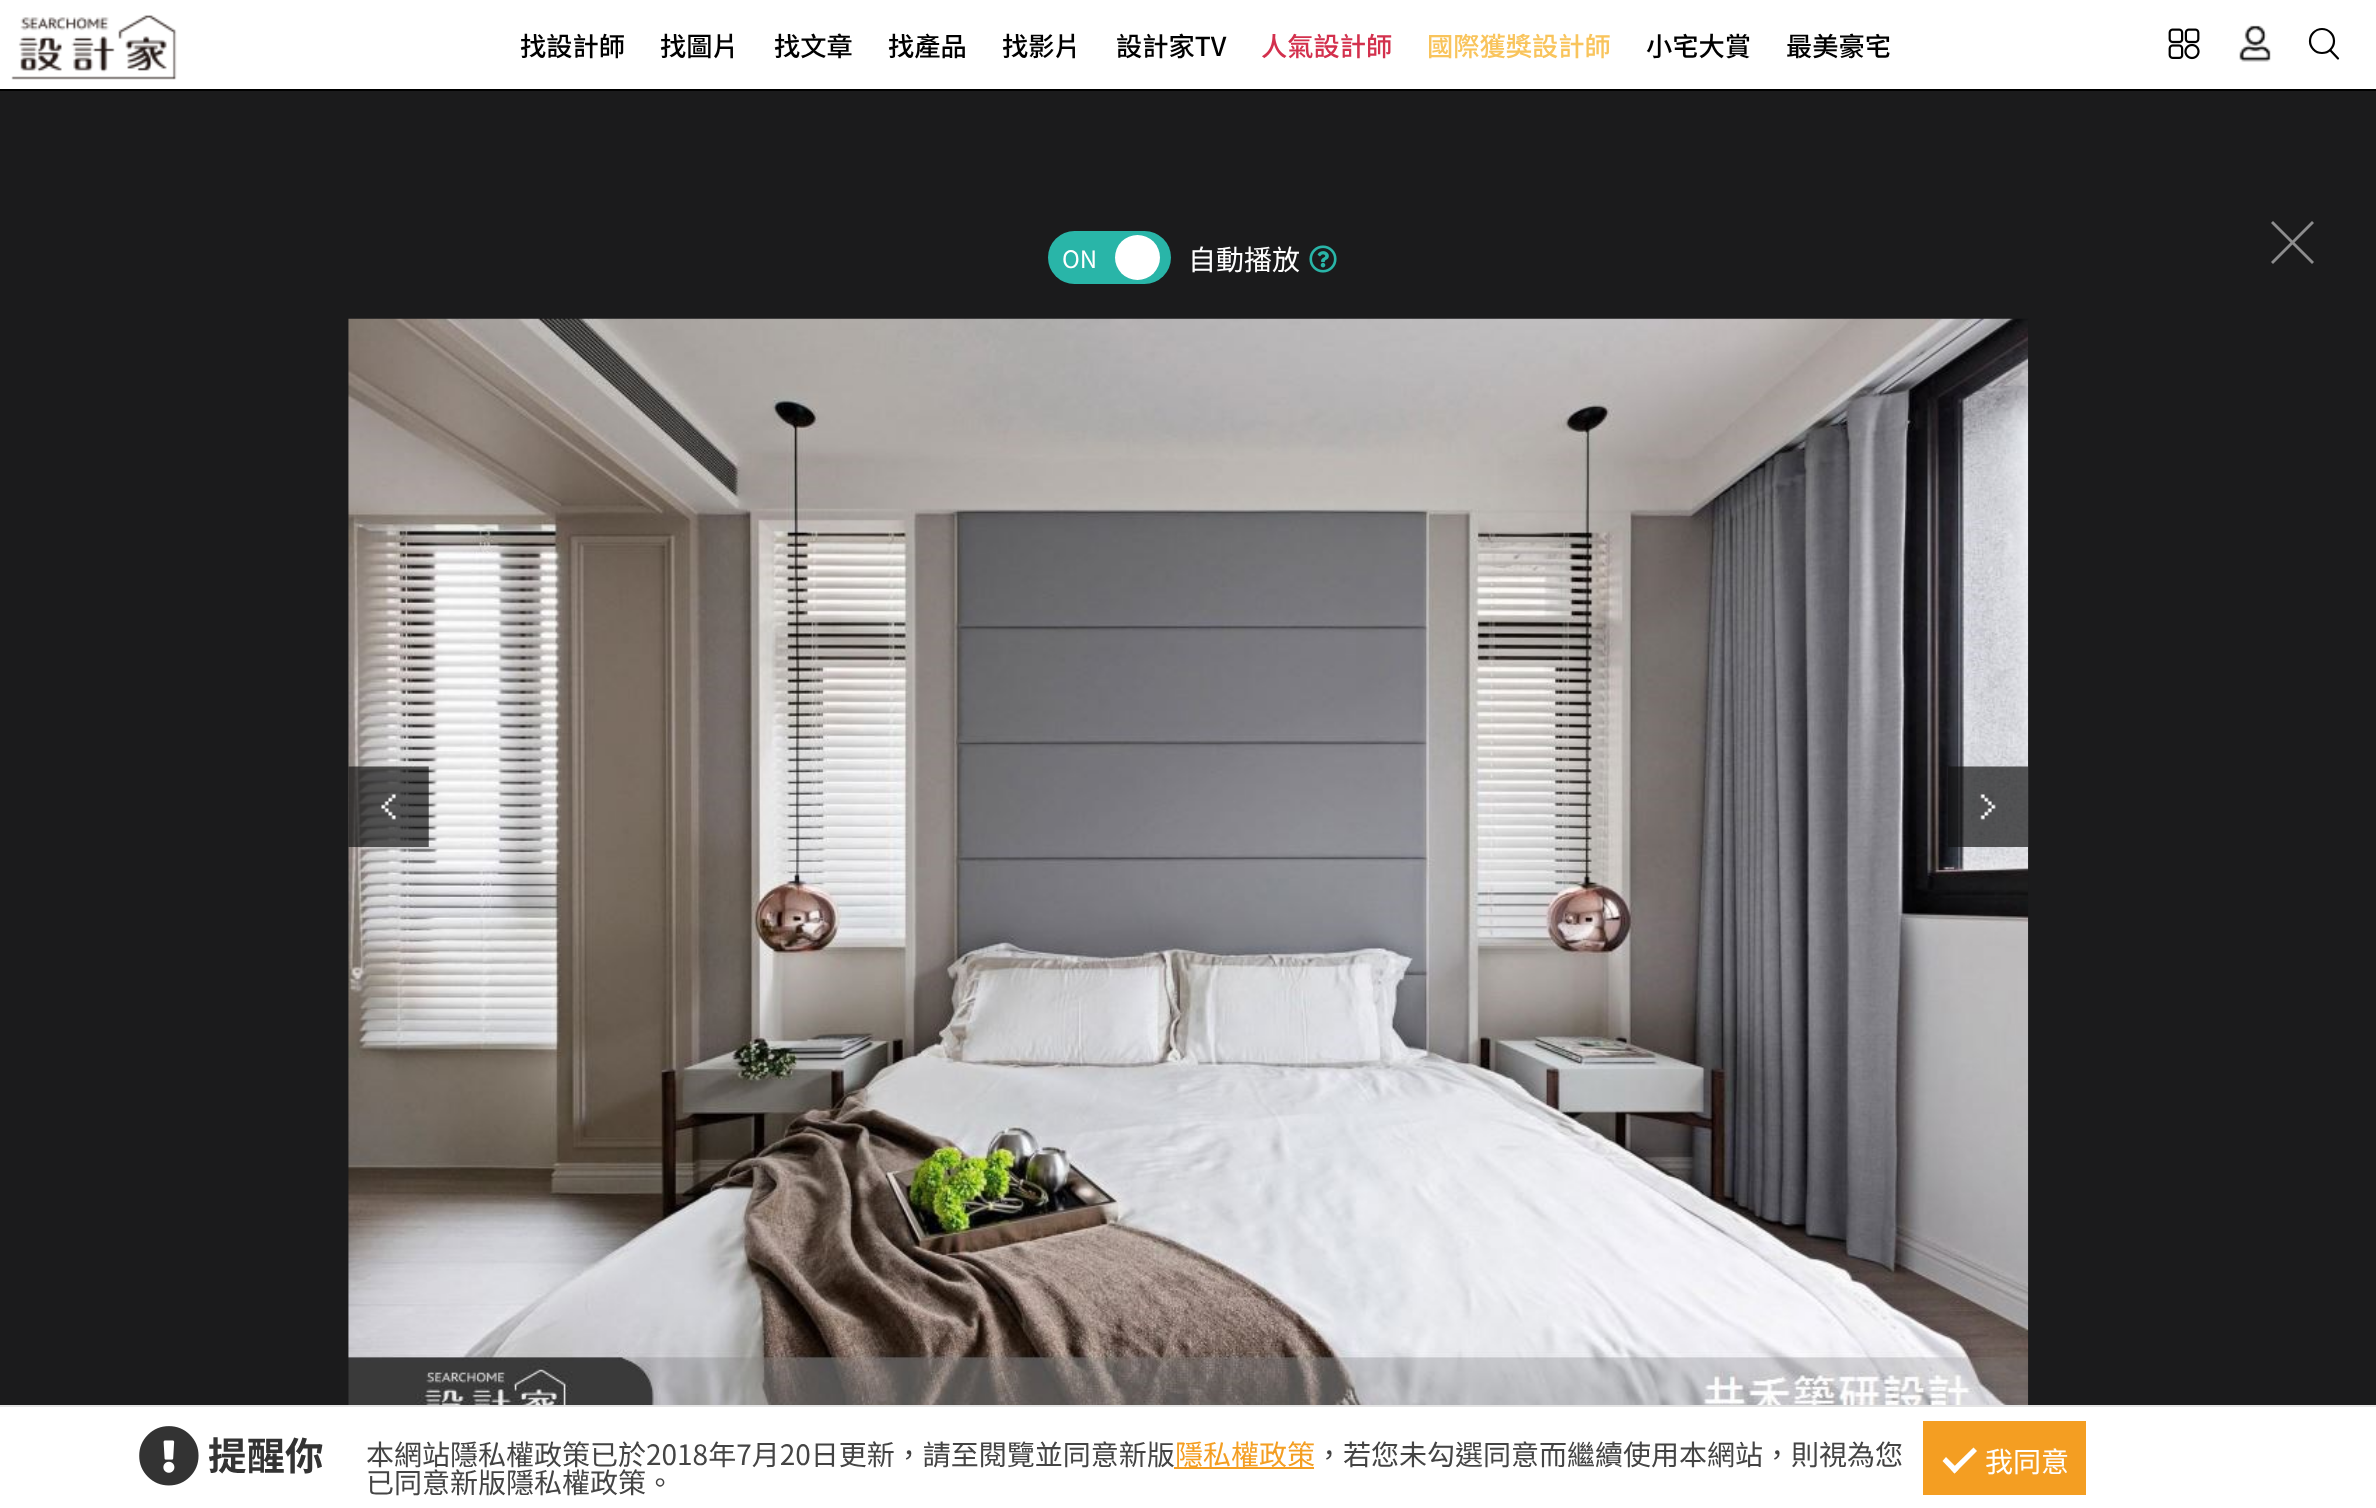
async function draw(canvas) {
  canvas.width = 2376
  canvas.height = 1508
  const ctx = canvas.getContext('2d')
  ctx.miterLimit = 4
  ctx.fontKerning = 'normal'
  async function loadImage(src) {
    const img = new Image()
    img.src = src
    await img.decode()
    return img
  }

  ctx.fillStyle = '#fff'
  ctx.fillRect(0, 0, 2376, 1508)
  ctx.fillStyle = '#000'
  ctx.fillRect(0, 89, 2376, 2)
  ctx.drawImage(await loadImage('image0.png'), 11, 15, 166, 65)
  ctx.font = '500 26.25px Noto Sans TC'
  ctx.fillText('找設計師', 520, 56)
  ctx.fillText('找圖片', 660, 56)
  ctx.fillText('找文章', 774, 56)
  ctx.fillText('找產品', 888, 56)
  ctx.fillText('找影片', 1002, 56)
  ctx.fillText('設計家TV', 1116, 56)
  ctx.fillStyle = '#d3304d'
  ctx.fillText('人氣設計師', 1261, 56)
  ctx.fillStyle = '#f9c45c'
  ctx.fillText('國際獲獎設計師', 1427, 56)
  ctx.fillStyle = '#000'
  ctx.fillText('小宅大賞', 1646, 56)
  ctx.fillText('最美豪宅', 1786, 56)
  ctx.drawImage(await loadImage('image1.png'), 2168, 28, 32, 32)
  ctx.drawImage(await loadImage('image2.png'), 2239, 25, 32, 37)
  ctx.beginPath()
  ctx.arc(2322, 41, 12, 0, 2 * Math.PI)
  ctx.strokeStyle = '#000'
  ctx.lineWidth = 2.2
  ctx.stroke()
  ctx.beginPath()
  ctx.moveTo(2330.5, 50.5)
  ctx.lineTo(2338, 58.5)
  ctx.lineCap = 'round'
  ctx.stroke()
  ctx.fillStyle = '#1b1b1c'
  ctx.fillRect(0, 91, 2376, 1314)
  ctx.fillStyle = '#29b5a8'
  ctx.beginPath()
  ctx.roundRect(1048, 231, 123, 53, 26.5)
  ctx.fill()
  ctx.font = '24px Noto Sans TC'
  ctx.fillStyle = '#fff'
  ctx.fillText('ON', 1062, 268)
  ctx.beginPath()
  ctx.arc(1137.5, 257.5, 22.5, 0, 2 * Math.PI)
  ctx.fill()
  ctx.font = '28px Noto Sans TC'
  ctx.fillText('自動播放', 1188, 270)
  ctx.drawImage(await loadImage('image3.png'), 1309, 245, 28, 28)
  ctx.fillStyle = '#8d8d8e'
  ctx.beginPath()
  ctx.moveTo(2312, 221)
  ctx.lineTo(2314, 223)
  ctx.lineTo(2273, 264)
  ctx.lineTo(2271, 262)
  ctx.closePath()
  ctx.fill()
  ctx.beginPath()
  ctx.moveTo(2271, 223)
  ctx.lineTo(2273, 221)
  ctx.lineTo(2314, 262)
  ctx.lineTo(2312, 264)
  ctx.closePath()
  ctx.fill()
  ctx.drawImage(await loadImage('image4.png'), 348, 318, 1681, 1087)
  ctx.drawImage(await loadImage('image5.png'), 348, 766, 81, 81)
  ctx.drawImage(await loadImage('image6.png'), 1948, 766, 80, 81)
  ctx.strokeStyle = '#e4e4e4'
  ctx.lineWidth = 2
  ctx.strokeRect(-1, 1406, 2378, 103)
  ctx.drawImage(await loadImage('image7.png'), 139, 1426, 60, 60)
  ctx.font = 'bold 38.5px Noto Sans TC'
  ctx.fillStyle = '#333'
  ctx.fillText('提醒你', 208, 1470)
  ctx.font = '28px Noto Sans TC'
  ctx.fillStyle = '#444'
  ctx.fillText('本網站隱私權政策已於2018年7月20日更新，請至閱覽並同意新版', 366, 1465)
  ctx.fillStyle = '#f49e22'
  ctx.fillRect(1174, 1467, 140, 2)
  ctx.fillText('隱私權政策', 1175, 1465)
  ctx.fillStyle = '#444'
  ctx.fillText('，若您未勾選同意而繼續使用本網站，則視為您', 1315, 1465)
  ctx.fillText('已同意新版隱私權政策。', 366, 1493)
  ctx.fillStyle = '#f49e22'
  ctx.fillRect(1923, 1421, 163, 74)
  ctx.fillStyle = '#fff'
  ctx.beginPath()
  ctx.moveTo(1973.5, 1447.5)
  ctx.lineTo(1977, 1451)
  ctx.lineTo(1954.5, 1473.5)
  ctx.lineTo(1951, 1469.5)
  ctx.closePath()
  ctx.fill()
  ctx.beginPath()
  ctx.moveTo(1946, 1457)
  ctx.lineTo(1958.5, 1469.5)
  ctx.lineTo(1954.5, 1473.5)
  ctx.lineTo(1942.5, 1461)
  ctx.closePath()
  ctx.fill()
  ctx.fillText('我同意', 1985, 1472)
}

draw(document.querySelector('canvas'))
